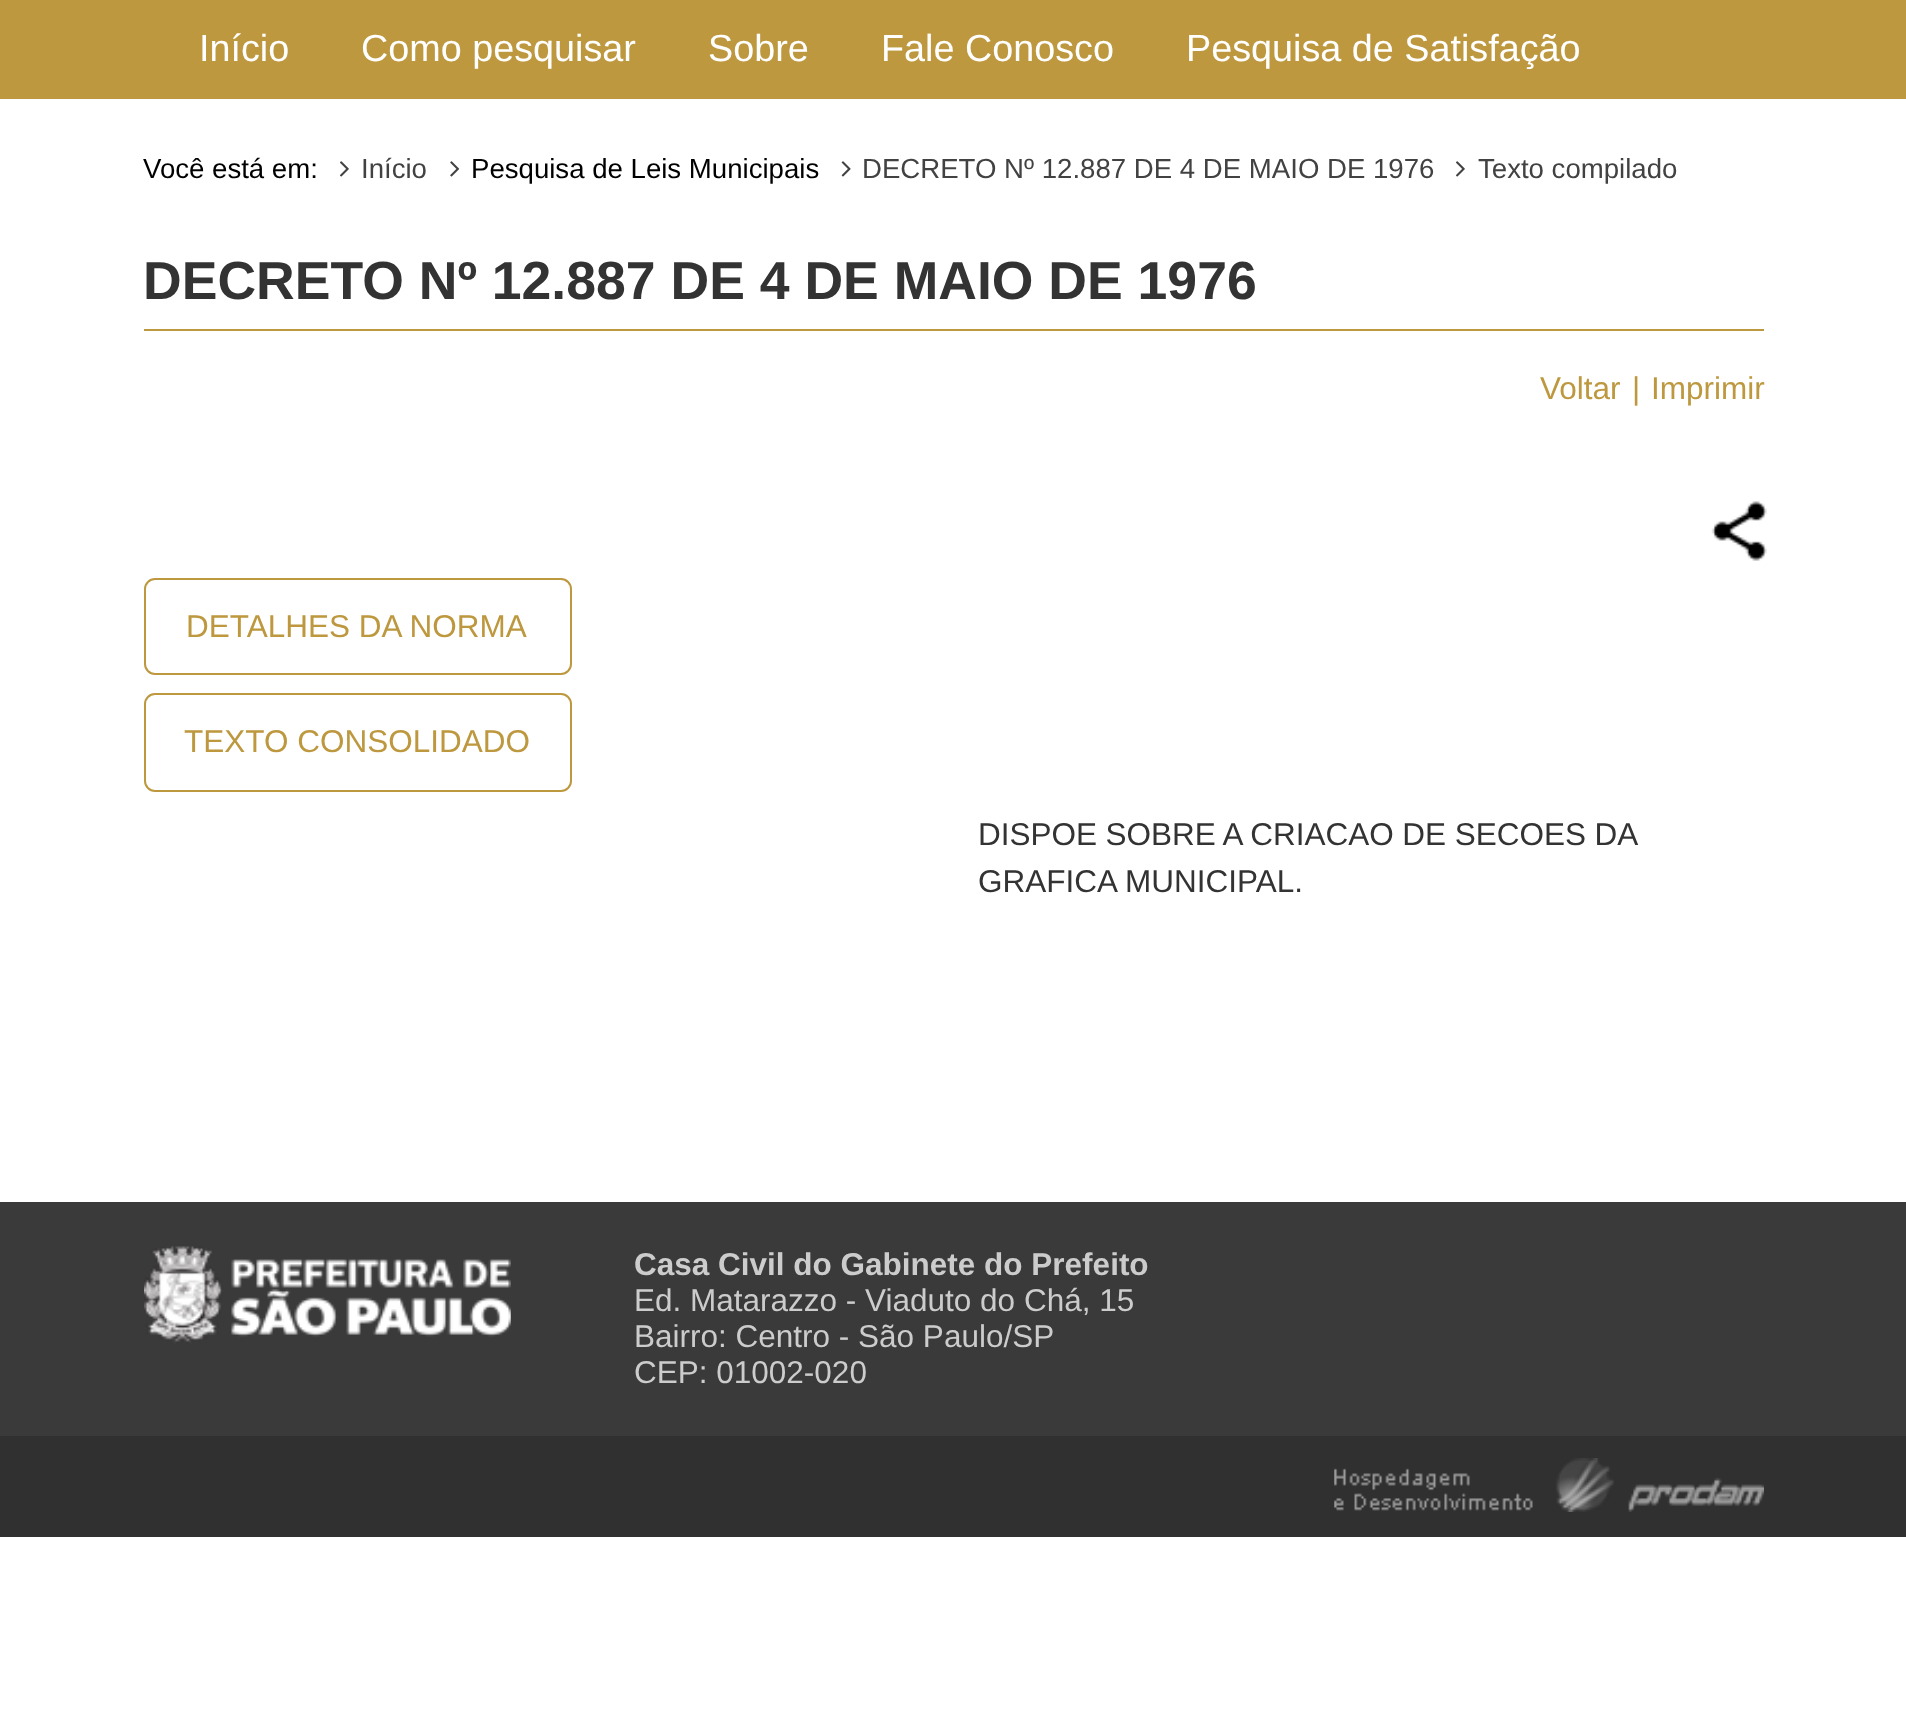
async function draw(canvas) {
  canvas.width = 1906
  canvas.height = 1734
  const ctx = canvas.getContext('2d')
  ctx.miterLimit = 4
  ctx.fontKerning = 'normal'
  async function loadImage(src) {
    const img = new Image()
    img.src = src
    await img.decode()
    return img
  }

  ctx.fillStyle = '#fff'
  ctx.fillRect(0, 0, 1906, 1734)
  ctx.fillStyle = '#bd983f'
  ctx.fillRect(0, 0, 1906, 99)
  ctx.font = '37.75px Liberation Sans'
  ctx.fillStyle = '#fff'
  ctx.fillText('Início', 199, 61)
  ctx.fillText('Como pesquisar', 361, 61)
  ctx.fillText('Sobre', 708, 61)
  ctx.fillText('Fale Conosco', 881, 61)
  ctx.fillText('Pesquisa de Satisfação', 1186, 61)
  ctx.font = '27.6px Liberation Sans'
  ctx.fillStyle = '#000'
  ctx.fillText('Você está em:', 143, 178)
  ctx.drawImage(await loadImage('image0.png'), 340, 161, 9, 16)
  ctx.fillStyle = '#424242'
  ctx.fillText('Início', 361, 178)
  ctx.drawImage(await loadImage('image1.png'), 450, 161, 10, 16)
  ctx.fillStyle = '#000'
  ctx.fillText('Pesquisa de Leis Municipais', 471, 178)
  ctx.drawImage(await loadImage('image2.png'), 841, 161, 10, 16)
  ctx.fillStyle = '#424242'
  ctx.fillText('DECRETO Nº 12.887 DE 4 DE MAIO DE 1976', 862, 178)
  ctx.drawImage(await loadImage('image0.png'), 1456, 161, 9, 16)
  ctx.fillText('Texto compilado', 1478, 178)
  ctx.fillStyle = '#bd983f'
  ctx.fillRect(144, 329, 1620, 2)
  ctx.font = 'bold 53.55px Liberation Sans'
  ctx.fillStyle = '#333'
  ctx.fillText('DECRETO Nº 12.887 DE 4 DE MAIO DE 1976', 143, 299)
  ctx.font = '31.5px Liberation Sans'
  ctx.fillStyle = '#bd983f'
  ctx.fillText('Voltar', 1540, 399)
  ctx.fillText('|', 1632, 399)
  ctx.fillText('Imprimir', 1651, 399)
  ctx.drawImage(await loadImage('image3.png'), 1711, 501, 56, 60)
  ctx.beginPath()
  ctx.roundRect(145, 579, 426, 95, 10)
  ctx.strokeStyle = '#bd983f'
  ctx.lineWidth = 2
  ctx.stroke()
  ctx.fillText('DETALHES DA NORMA', 186, 637)
  ctx.beginPath()
  ctx.roundRect(145, 694, 426, 97, 10)
  ctx.stroke()
  ctx.fillText('TEXTO CONSOLIDADO', 184, 752)
  ctx.wordSpacing = '-0.25px'
  ctx.fillStyle = '#333'
  ctx.fillText('DISPOE SOBRE A CRIACAO DE SECOES DA', 978, 845)
  ctx.wordSpacing = '0px'
  ctx.fillText('GRAFICA MUNICIPAL.', 978, 892)
  ctx.fillStyle = '#3a3a3a'
  ctx.fillRect(0, 1202, 1906, 234)
  ctx.drawImage(await loadImage('image4.png'), 144, 1246, 367, 98)
  ctx.font = 'bold 31.5px Liberation Sans'
  ctx.fillStyle = '#ccc'
  ctx.fillText('Casa Civil do Gabinete do Prefeito', 634, 1275)
  ctx.font = '31.5px Liberation Sans'
  ctx.fillText('Ed. Matarazzo - Viaduto do Chá, 15', 634, 1311)
  ctx.fillText('Bairro: Centro - São Paulo/SP', 634, 1347)
  ctx.fillText('CEP: 01002-020', 634, 1383)
  ctx.fillStyle = '#303030'
  ctx.fillRect(0, 1436, 1906, 101)
  ctx.drawImage(await loadImage('image5.png'), 1334, 1458, 430, 54)
}

draw(document.querySelector('canvas'))
